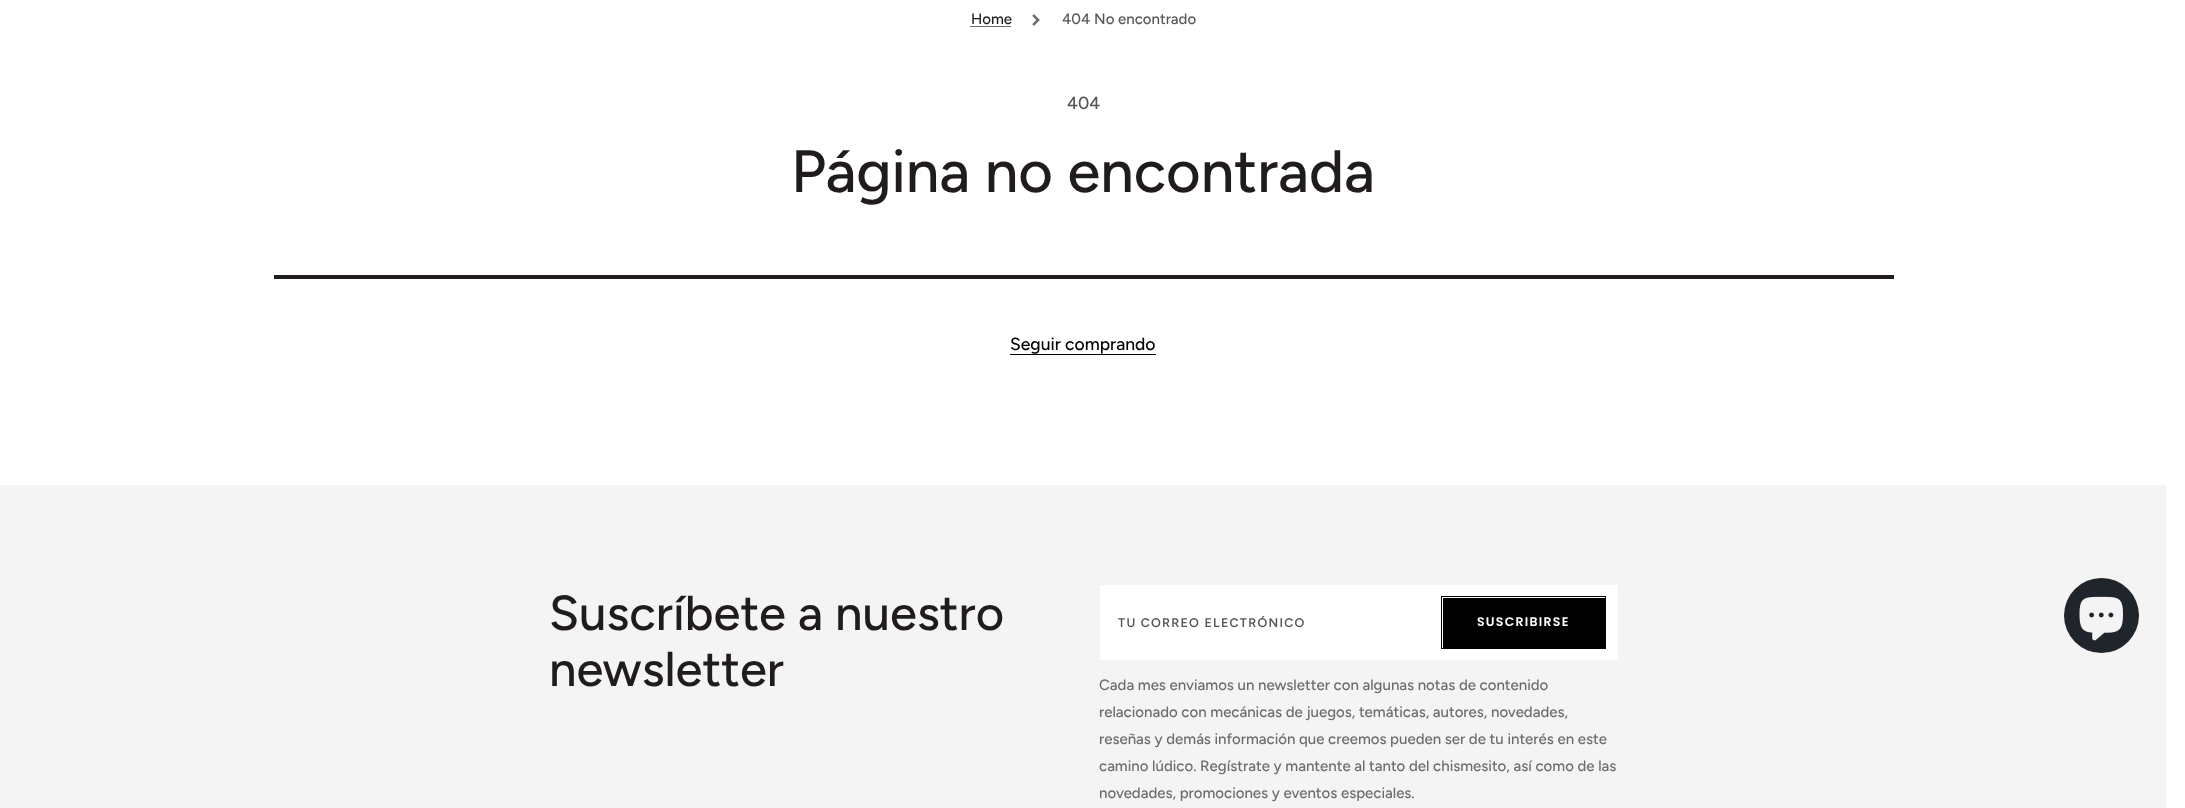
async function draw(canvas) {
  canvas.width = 2185
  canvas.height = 808
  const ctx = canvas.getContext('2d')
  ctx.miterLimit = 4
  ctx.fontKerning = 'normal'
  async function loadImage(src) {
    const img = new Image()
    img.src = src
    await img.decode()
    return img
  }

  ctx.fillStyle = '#fff'
  ctx.fillRect(0, 0, 2185, 808)
  ctx.font = '500 15px Figtree'
  ctx.fillStyle = '#211c1c'
  ctx.fillText('Home', 971, 24)
  ctx.fillStyle = '#6d6b6b'
  ctx.fillRect(970, 26, 41, 1)
  ctx.drawImage(await loadImage('image0.png'), 1032, 14, 8, 12)
  ctx.fillStyle = '#595555'
  ctx.fillText('404 No encontrado', 1062, 24)
  ctx.fillStyle = '#211c1c'
  ctx.fillRect(274, 275, 1620, 4)
  ctx.font = '500 17.5px Figtree'
  ctx.fillStyle = '#595555'
  ctx.fillText('404', 1067, 109)
  ctx.font = '500 59.75px Figtree'
  ctx.fillStyle = '#211c1c'
  ctx.fillText('Página no encontrada', 791, 192)
  ctx.font = '500 17.5px Figtree'
  ctx.fillStyle = '#000'
  ctx.fillText('Seguir comprando', 1010, 350)
  ctx.fillRect(1010, 354, 146, 1)
  ctx.fillStyle = '#f4f4f4'
  ctx.fillRect(0, 485, 2166, 323)
  ctx.font = '500 49px Figtree'
  ctx.fillStyle = '#211c1c'
  ctx.fillText('Suscríbete a nuestro', 549, 630)
  ctx.fillText('newsletter', 549, 686)
  ctx.fillStyle = '#fff'
  ctx.fillRect(1100, 585, 518, 75)
  ctx.letterSpacing = '1.25px'
  ctx.font = '600 12.5px Figtree'
  ctx.fillStyle = '#595555'
  ctx.fillText('TU CORREO ELECTRÓNICO', 1118, 627)
  ctx.strokeStyle = '#000'
  ctx.strokeRect(1441.5, 596.5, 164, 52)
  ctx.fillStyle = '#000'
  ctx.fillRect(1443, 598, 162, 50)
  ctx.font = '600 12.5px Poppins'
  ctx.fillStyle = '#fff'
  ctx.fillText('SUSCRIBIRSE', 1477, 626)
  ctx.letterSpacing = '0px'
  ctx.font = '500 15px Figtree'
  ctx.fillStyle = '#6d6b6b'
  ctx.fillText('Cada mes enviamos un newsletter con algunas notas de contenido', 1099, 690)
  ctx.fillText('relacionado con mecánicas de juegos, temáticas, autores, novedades,', 1099, 717)
  ctx.fillText('reseñas y demás información que creemos pueden ser de tu interés en este', 1099, 744)
  ctx.fillText('camino lúdico. Regístrate y mantente al tanto del chismesito, así como de las', 1099, 771)
  ctx.fillText('novedades, promociones y eventos especiales.', 1099, 798)
  ctx.fillStyle = '#20252b'
  ctx.beginPath()
  ctx.arc(2101.5, 615.5, 37.5, 0, 2 * Math.PI)
  ctx.fill()
  ctx.drawImage(await loadImage('image1.png'), 2079, 596, 44, 45)
}

draw(document.querySelector('canvas'))
